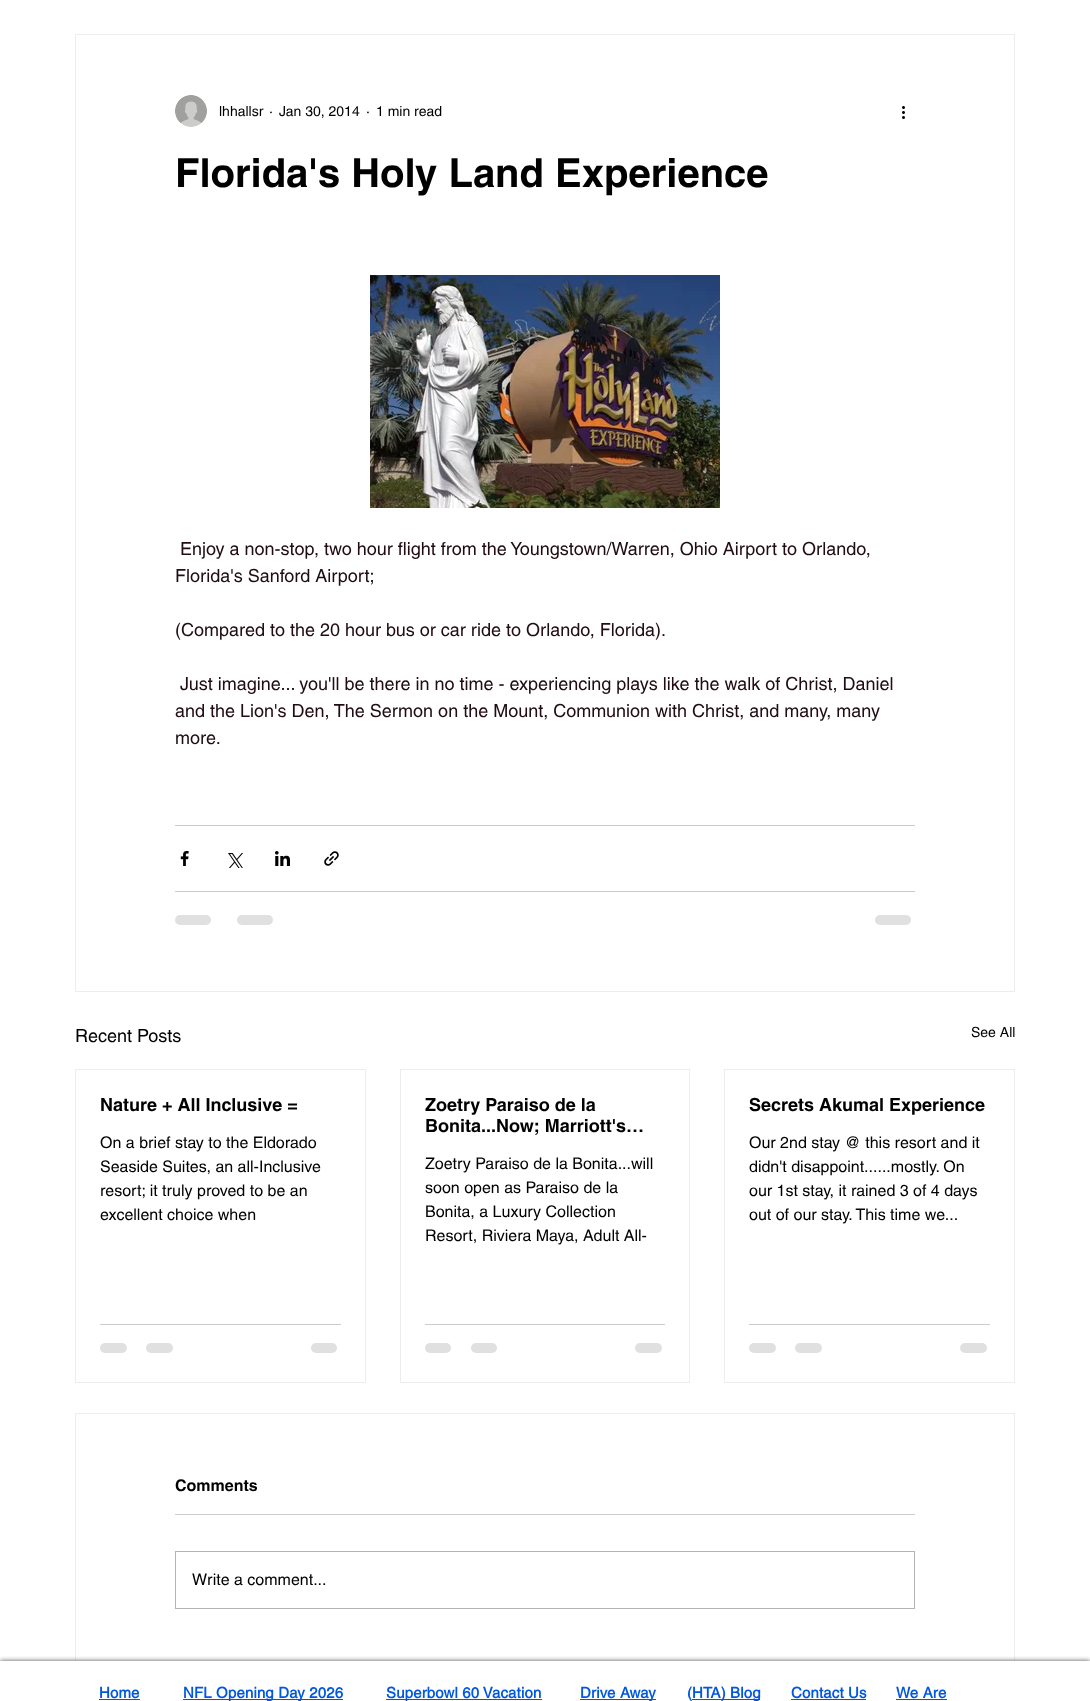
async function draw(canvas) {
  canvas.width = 1090
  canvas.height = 1701
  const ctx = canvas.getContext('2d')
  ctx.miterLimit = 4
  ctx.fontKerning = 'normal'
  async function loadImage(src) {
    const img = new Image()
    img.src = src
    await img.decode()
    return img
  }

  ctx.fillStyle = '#fff'
  ctx.fillRect(0, 0, 1090, 1701)
  ctx.strokeStyle = '#eeecec'
  ctx.strokeRect(75.5, 34.5, 939, 957)
  ctx.drawImage(await loadImage('image0.png'), 175, 95, 32, 32)
  ctx.font = '14px helvetica'
  ctx.fillStyle = '#000'
  ctx.fillText('lhhallsr', 219, 116)
  ctx.fillText('·', 269, 116)
  ctx.fillText('Jan 30, 2014', 279, 116)
  ctx.fillText('·', 366, 116)
  ctx.fillText('1 min read', 376, 116)
  ctx.drawImage(await loadImage('image1.png'), 902, 106, 3, 13)
  ctx.font = 'bold 40px helvetica'
  ctx.fillText('Florida\'s Holy Land Experience', 175, 187)
  ctx.drawImage(await loadImage('image2.png'), 370, 275, 350, 233)
  ctx.font = '18px helvetica'
  ctx.fillStyle = '#200c12'
  ctx.fillText('Enjoy a non-stop, two hour flight from the Youngstown/Warren, Ohio Airport to Orlando,', 180, 555)
  ctx.fillText('Florida\'s Sanford Airport;', 175, 582)
  ctx.fillText('(Compared to the 20 hour bus or car ride to Orlando, Florida).', 175, 636)
  ctx.fillText('Just imagine... you\'ll be there in no time - experiencing plays like the walk of Christ, Daniel', 180, 690)
  ctx.fillText('and the Lion\'s Den, The Sermon on the Mount, Communion with Christ, and many, many', 175, 717)
  ctx.fillText('more.', 175, 744)
  ctx.fillStyle = '#ccc'
  ctx.fillRect(175, 825, 740, 1)
  ctx.drawImage(await loadImage('image3.png'), 180, 851, 9, 15)
  ctx.drawImage(await loadImage('image4.png'), 228, 853, 15, 15)
  ctx.drawImage(await loadImage('image5.png'), 275, 851, 15, 15)
  ctx.drawImage(await loadImage('image6.png'), 324, 851, 15, 15)
  ctx.fillRect(175, 891, 740, 1)
  ctx.fillStyle = '#e0e0e0'
  ctx.beginPath()
  ctx.roundRect(175, 915, 36, 10, 5)
  ctx.fill()
  ctx.beginPath()
  ctx.roundRect(237, 915, 36, 10, 5)
  ctx.fill()
  ctx.beginPath()
  ctx.roundRect(875, 915, 36, 10, 5)
  ctx.fill()
  ctx.fillStyle = '#000'
  ctx.fillText('Recent Posts', 75, 1042)
  ctx.font = '14px helvetica'
  ctx.fillText('See All', 971, 1037)
  ctx.strokeRect(75.5, 1069.5, 290, 313)
  ctx.font = 'bold 18px helvetica'
  ctx.fillText('Nature + All Inclusive =', 100, 1111)
  ctx.font = '16px helvetica'
  ctx.fillText('On a brief stay to the Eldorado', 100, 1148)
  ctx.fillText('Seaside Suites, an all-Inclusive', 100, 1172)
  ctx.fillText('resort; it truly proved to be an', 100, 1196)
  ctx.fillText('excellent choice when', 100, 1220)
  ctx.fillStyle = '#ccc'
  ctx.fillRect(100, 1324, 241, 1)
  ctx.fillStyle = '#e0e0e0'
  ctx.beginPath()
  ctx.roundRect(100, 1343, 27, 10, 5)
  ctx.fill()
  ctx.beginPath()
  ctx.roundRect(146, 1343, 27, 10, 5)
  ctx.fill()
  ctx.beginPath()
  ctx.roundRect(311, 1343, 26, 10, 5)
  ctx.fill()
  ctx.strokeRect(400.5, 1069.5, 289, 313)
  ctx.font = 'bold 18px helvetica'
  ctx.fillStyle = '#000'
  ctx.fillText('Zoetry Paraiso de la', 425, 1111)
  ctx.fillText('Bonita...Now; Marriott\'s…', 425, 1132)
  ctx.font = '16px helvetica'
  ctx.fillText('Zoetry Paraiso de la Bonita...will', 425, 1169)
  ctx.fillText('soon open as Paraiso de la', 425, 1193)
  ctx.fillText('Bonita, a Luxury Collection', 425, 1217)
  ctx.fillText('Resort, Riviera Maya, Adult All-', 425, 1241)
  ctx.fillStyle = '#ccc'
  ctx.fillRect(425, 1324, 240, 1)
  ctx.fillStyle = '#e0e0e0'
  ctx.beginPath()
  ctx.roundRect(425, 1343, 26, 10, 5)
  ctx.fill()
  ctx.beginPath()
  ctx.roundRect(471, 1343, 26, 10, 5)
  ctx.fill()
  ctx.beginPath()
  ctx.roundRect(635, 1343, 27, 10, 5)
  ctx.fill()
  ctx.strokeRect(724.5, 1069.5, 290, 313)
  ctx.font = 'bold 18px helvetica'
  ctx.fillStyle = '#000'
  ctx.fillText('Secrets Akumal Experience', 749, 1111)
  ctx.font = '16px helvetica'
  ctx.fillText('Our 2nd stay @ this resort and it', 749, 1148)
  ctx.fillText('didn\'t disappoint......mostly. On', 749, 1172)
  ctx.fillText('our 1st stay, it rained 3 of 4 days', 749, 1196)
  ctx.fillText('out of our stay. This time we...', 749, 1220)
  ctx.fillStyle = '#ccc'
  ctx.fillRect(749, 1324, 241, 1)
  ctx.fillStyle = '#e0e0e0'
  ctx.beginPath()
  ctx.roundRect(749, 1343, 27, 10, 5)
  ctx.fill()
  ctx.beginPath()
  ctx.roundRect(795, 1343, 27, 10, 5)
  ctx.fill()
  ctx.beginPath()
  ctx.roundRect(960, 1343, 27, 10, 5)
  ctx.fill()
  ctx.strokeRect(75.5, 1413.5, 939, 264)
  ctx.font = 'bold 16px helvetica'
  ctx.fillStyle = '#000'
  ctx.fillText('Comments', 175, 1491)
  ctx.fillStyle = '#ccc'
  ctx.fillRect(175, 1514, 740, 1)
  ctx.strokeStyle = '#b3b3b3'
  ctx.strokeRect(175.5, 1551.5, 739, 57)
  ctx.font = '16px helvetica'
  ctx.fillStyle = '#000'
  ctx.fillText('Write a comment...', 192, 1585)
  ctx.fillStyle = '#000000b3'
  ctx.filter = 'blur(2.5px)'
  ctx.beginPath()
  ctx.rect(0, 1661, 1090, 40)
  ctx.fill()
  ctx.filter = 'none'
  ctx.fillStyle = '#fff'
  ctx.fillRect(0, 1661, 1090, 40)
  ctx.letterSpacing = '0.15px'
  ctx.font = 'bold 15px "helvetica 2"'
  ctx.fillStyle = '#0057e1'
  ctx.fillText('Home', 99, 1698)
  ctx.fillRect(99, 1699, 41, 1)
  ctx.fillRect(183, 1699, 160, 1)
  ctx.fillText('NFL Opening Day 2026', 183, 1698)
  ctx.fillRect(386, 1699, 156, 1)
  ctx.fillText('Superbowl 60 Vacation', 386, 1698)
  ctx.fillRect(580, 1699, 76, 1)
  ctx.fillText('Drive Away', 580, 1698)
  ctx.fillText('(', 687, 1698)
  ctx.fillRect(692, 1699, 68, 1)
  ctx.fillText('HTA) Blog', 692, 1698)
  ctx.fillText('Contact Us', 791, 1698)
  ctx.fillRect(791, 1699, 75, 1)
  ctx.fillText('We Are', 896, 1698)
  ctx.fillRect(896, 1699, 51, 1)
}

draw(document.querySelector('canvas'))
